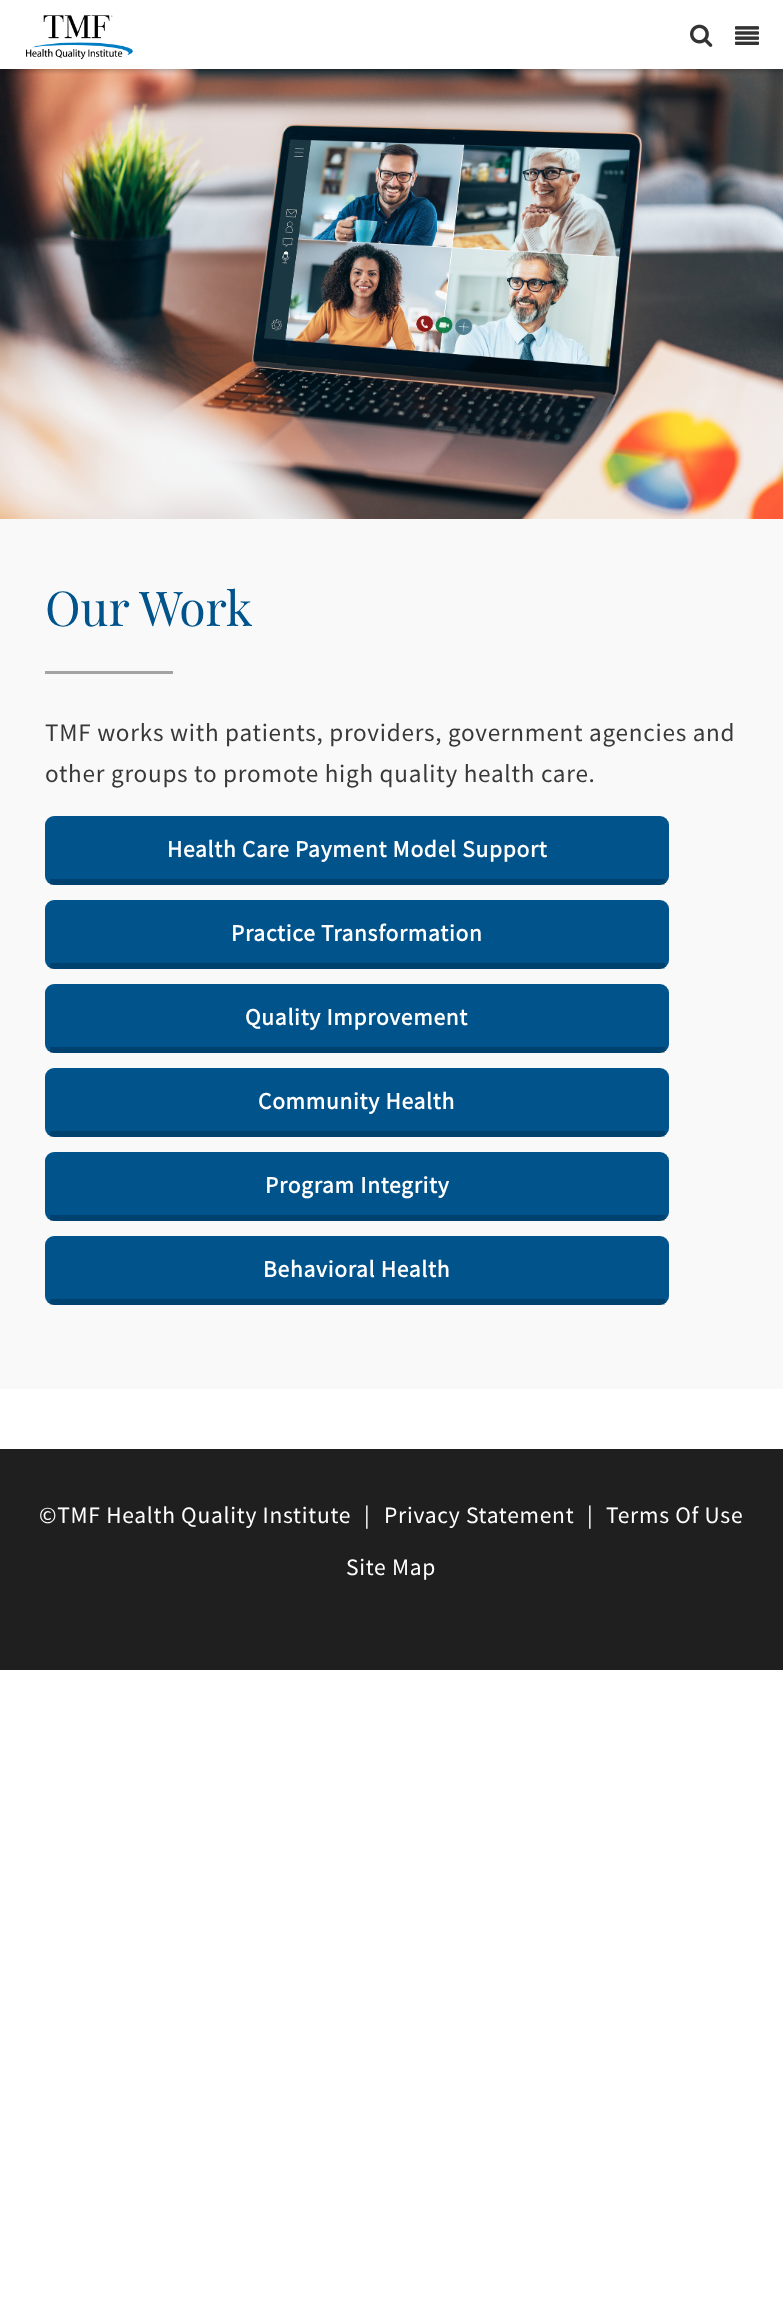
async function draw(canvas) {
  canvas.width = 783
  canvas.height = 2312
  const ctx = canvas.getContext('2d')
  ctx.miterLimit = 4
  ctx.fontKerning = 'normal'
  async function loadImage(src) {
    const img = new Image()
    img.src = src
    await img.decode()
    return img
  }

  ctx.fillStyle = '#fff'
  ctx.fillRect(0, 0, 783, 2312)
  ctx.drawImage(await loadImage('image3.png'), 0, 69, 783, 450)
  ctx.save()
  ctx.beginPath()
  ctx.rect(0, 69, 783, 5)
  ctx.clip()
  ctx.fillStyle = '#00000066'
  ctx.filter = 'blur(3px)'
  ctx.beginPath()
  ctx.rect(0, 0, 783, 69)
  ctx.fill()
  ctx.filter = 'none'
  ctx.restore()
  ctx.drawImage(await loadImage('image0.png'), 26, 15, 107, 45)
  ctx.drawImage(await loadImage('image1.png'), 690, 24, 23, 23)
  ctx.drawImage(await loadImage('image2.png'), 735, 26, 24, 19)
  ctx.fillStyle = '#f9f9f9'
  ctx.beginPath()
  ctx.moveTo(-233, 519)
  ctx.lineTo(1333, 519)
  ctx.lineTo(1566, 1389)
  ctx.lineTo(0, 1389)
  ctx.closePath()
  ctx.fill()
  ctx.font = '48px Playfair Display'
  ctx.fillStyle = '#00538b'
  ctx.fillText('Our Work', 45, 626)
  ctx.fillStyle = '#a3a3a3'
  ctx.fillRect(45, 671, 128, 3)
  ctx.letterSpacing = '0.75px'
  ctx.font = '100 22.5px Noto Sans JP'
  ctx.fillStyle = '#383838'
  ctx.fillText('TMF works with patients, providers, government agencies and', 45, 741)
  ctx.fillText('other groups to promote high quality health care.', 45, 782)
  ctx.fillStyle = '#00538b'
  ctx.beginPath()
  ctx.roundRect(45, 816, 624, 69, 9)
  ctx.fill()
  ctx.fillStyle = '#00000033'
  ctx.fillRect(50, 879, 615, 6)
  ctx.font = 'bold 21px Noto Sans JP'
  ctx.fillStyle = '#fff'
  ctx.fillText('Health Care Payment Model Support', 167, 857)
  ctx.fillStyle = '#00538b'
  ctx.beginPath()
  ctx.roundRect(45, 900, 624, 69, 9)
  ctx.fill()
  ctx.fillStyle = '#00000033'
  ctx.fillRect(50, 963, 615, 6)
  ctx.fillStyle = '#fff'
  ctx.fillText('Practice Transformation', 231, 941)
  ctx.fillStyle = '#00538b'
  ctx.beginPath()
  ctx.roundRect(45, 984, 624, 69, 9)
  ctx.fill()
  ctx.fillStyle = '#00000033'
  ctx.fillRect(50, 1047, 615, 6)
  ctx.fillStyle = '#fff'
  ctx.fillText('Quality Improvement', 245, 1025)
  ctx.fillStyle = '#00538b'
  ctx.beginPath()
  ctx.roundRect(45, 1068, 624, 69, 9)
  ctx.fill()
  ctx.fillStyle = '#00000033'
  ctx.fillRect(50, 1131, 615, 6)
  ctx.fillStyle = '#fff'
  ctx.fillText('Community Health', 258, 1109)
  ctx.fillStyle = '#00538b'
  ctx.beginPath()
  ctx.roundRect(45, 1152, 624, 69, 9)
  ctx.fill()
  ctx.fillStyle = '#00000033'
  ctx.fillRect(50, 1215, 615, 6)
  ctx.fillStyle = '#fff'
  ctx.fillText('Program Integrity', 265, 1193)
  ctx.fillStyle = '#00538b'
  ctx.beginPath()
  ctx.roundRect(45, 1236, 624, 69, 9)
  ctx.fill()
  ctx.fillStyle = '#00000033'
  ctx.fillRect(50, 1299, 615, 6)
  ctx.fillStyle = '#fff'
  ctx.fillText('Behavioral Health', 263, 1277)
  ctx.fillStyle = '#1f1f1f'
  ctx.fillRect(0, 1449, 783, 221)
  ctx.font = '100 21px Noto Sans JP'
  ctx.fillStyle = '#fff'
  ctx.fillText('©TMF Health Quality Institute', 39, 1523)
  ctx.fillText('|', 364, 1523)
  ctx.fillText('Privacy Statement', 384, 1523)
  ctx.fillText('|', 587, 1523)
  ctx.fillText('Terms Of Use', 606, 1523)
  ctx.fillText('Site Map', 346, 1575)
}

draw(document.querySelector('canvas'))
